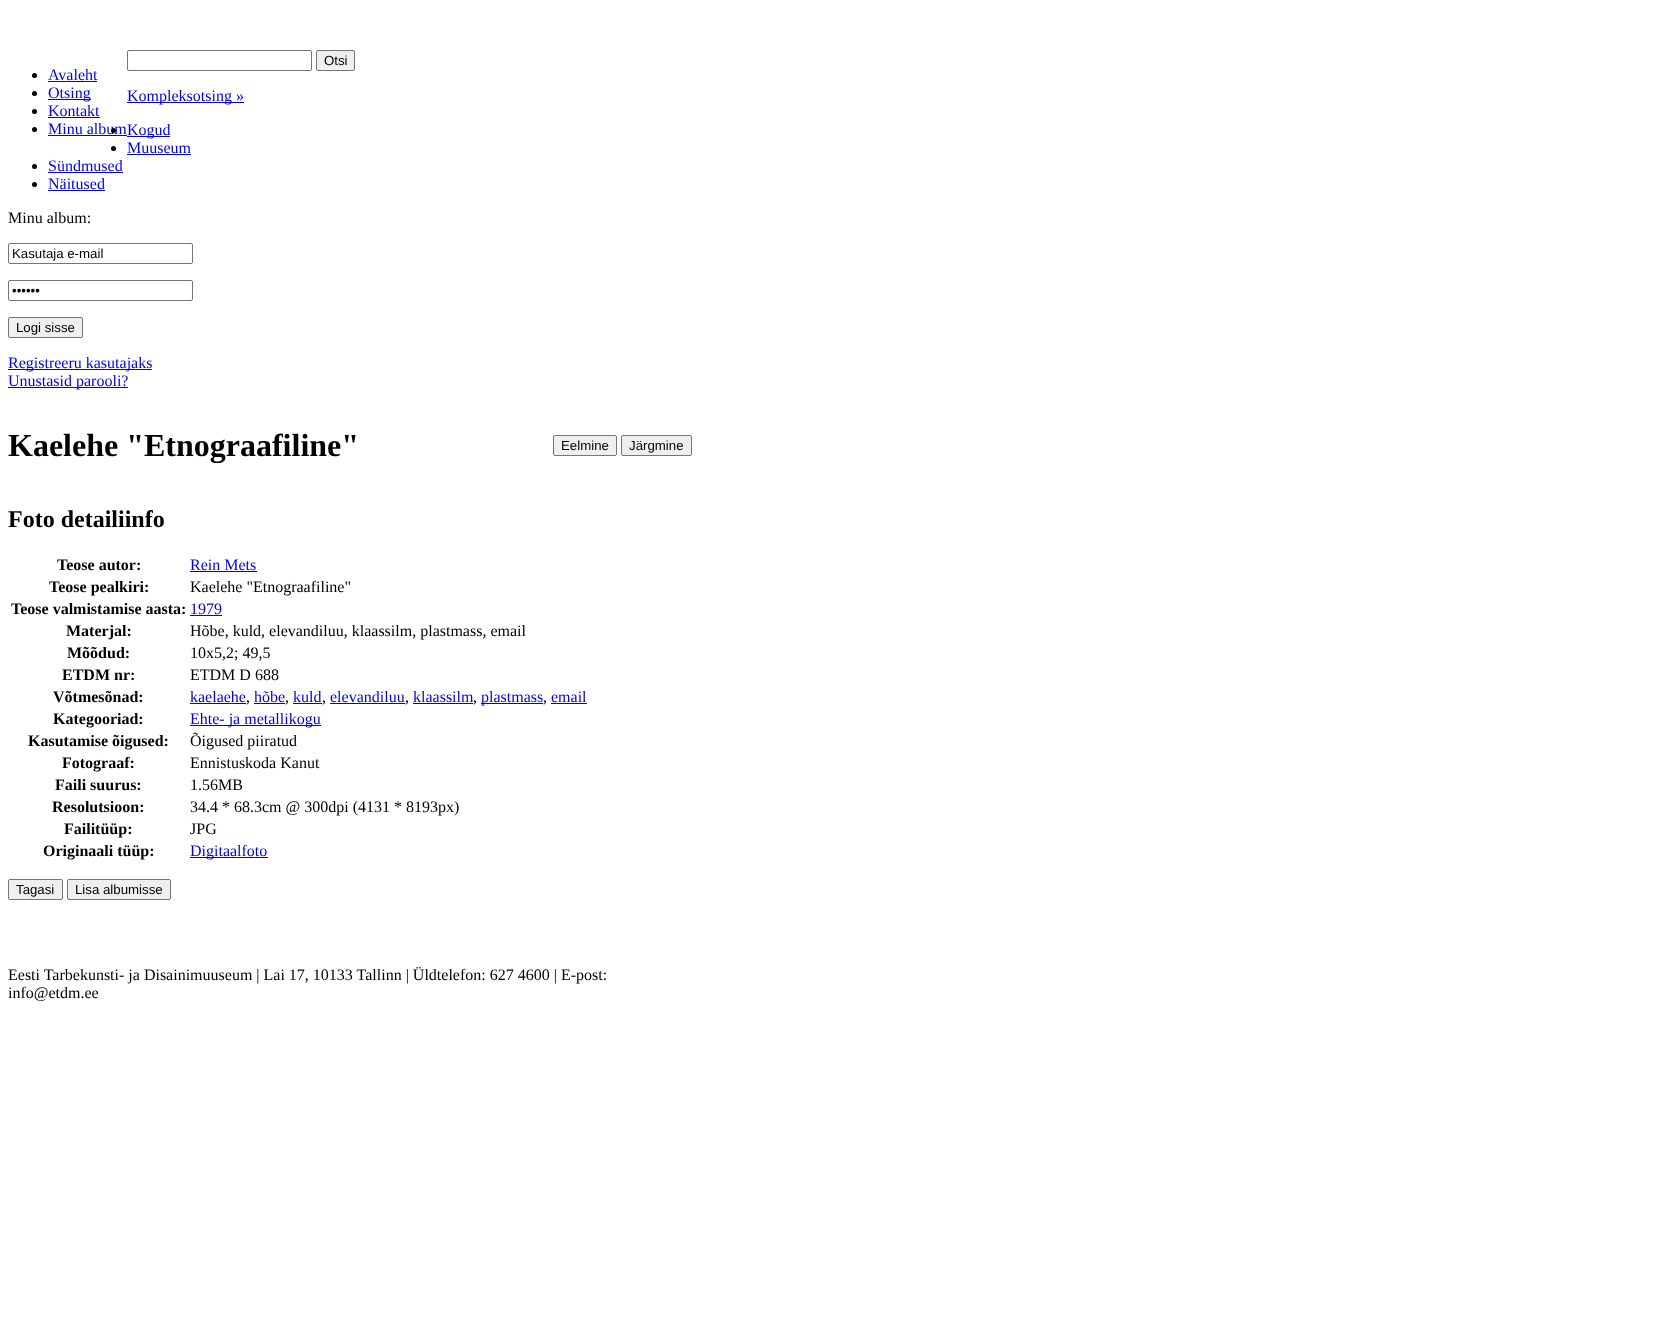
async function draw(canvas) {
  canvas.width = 1655
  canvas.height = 1319
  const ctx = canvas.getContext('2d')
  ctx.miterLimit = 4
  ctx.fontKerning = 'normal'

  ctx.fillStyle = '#fff'
  ctx.fillRect(0, 0, 1655, 1319)
  ctx.fillStyle = '#000'
  ctx.beginPath()
  ctx.arc(34.5, 75.5, 2.5, 0, 2 * Math.PI)
  ctx.fill()
  ctx.font = '16px Liberation Serif'
  ctx.fillStyle = '#00e'
  ctx.fillText('Avaleht', 48, 80)
  ctx.fillRect(48, 81, 49, 1)
  ctx.fillStyle = '#000'
  ctx.beginPath()
  ctx.arc(34.5, 93.5, 2.5, 0, 2 * Math.PI)
  ctx.fill()
  ctx.fillStyle = '#00e'
  ctx.fillRect(48, 99, 43, 1)
  ctx.fillText('Otsing', 48, 98)
  ctx.fillStyle = '#000'
  ctx.beginPath()
  ctx.arc(34.5, 111.5, 2.5, 0, 2 * Math.PI)
  ctx.fill()
  ctx.fillStyle = '#00e'
  ctx.fillText('Kontakt', 48, 116)
  ctx.fillRect(48, 117, 52, 1)
  ctx.fillStyle = '#000'
  ctx.beginPath()
  ctx.arc(34.5, 129.5, 2.5, 0, 2 * Math.PI)
  ctx.fill()
  ctx.fillStyle = '#00e'
  ctx.fillText('Minu album', 48, 134)
  ctx.fillRect(48, 135, 79, 1)
  ctx.beginPath()
  ctx.roundRect(127.5, 50.5, 184, 20, 1.5)
  ctx.strokeStyle = '#767676'
  ctx.stroke()
  ctx.fillStyle = '#efefef'
  ctx.beginPath()
  ctx.roundRect(316.5, 50.5, 38, 20, 1.5)
  ctx.fill()
  ctx.stroke()
  ctx.font = '13.25px Liberation Sans'
  ctx.fillStyle = '#000'
  ctx.fillText('Otsi', 324, 65)
  ctx.fillStyle = '#00e'
  ctx.fillRect(127, 102, 117, 1)
  ctx.font = '16px Liberation Serif'
  ctx.fillText('Kompleksotsing »', 127, 101)
  ctx.fillStyle = '#000'
  ctx.beginPath()
  ctx.arc(113.5, 130.5, 2.5, 0, 2 * Math.PI)
  ctx.fill()
  ctx.fillStyle = '#00e'
  ctx.fillRect(127, 136, 43, 1)
  ctx.fillText('Kogud', 127, 135)
  ctx.fillStyle = '#000'
  ctx.beginPath()
  ctx.arc(113.5, 148.5, 2.5, 0, 2 * Math.PI)
  ctx.fill()
  ctx.fillStyle = '#00e'
  ctx.fillText('Muuseum', 127, 153)
  ctx.fillRect(127, 154, 64, 1)
  ctx.fillStyle = '#000'
  ctx.beginPath()
  ctx.arc(34.5, 166.5, 2.5, 0, 2 * Math.PI)
  ctx.fill()
  ctx.fillStyle = '#00e'
  ctx.fillText('Sündmused', 48, 171)
  ctx.fillRect(48, 172, 75, 1)
  ctx.fillStyle = '#000'
  ctx.beginPath()
  ctx.arc(34.5, 184.5, 2.5, 0, 2 * Math.PI)
  ctx.fill()
  ctx.fillStyle = '#00e'
  ctx.fillText('Näitused', 48, 189)
  ctx.fillRect(48, 190, 57, 1)
  ctx.fillStyle = '#000'
  ctx.fillText('Minu album:', 8, 223)
  ctx.beginPath()
  ctx.roundRect(8.5, 243.5, 184, 20, 1.5)
  ctx.stroke()
  ctx.font = '13.25px Liberation Sans'
  ctx.fillText('Kasutaja e-mail', 12, 258)
  ctx.beginPath()
  ctx.roundRect(8.5, 280.5, 184, 20, 1.5)
  ctx.stroke()
  ctx.fillText('••••••', 12, 295)
  ctx.fillStyle = '#efefef'
  ctx.beginPath()
  ctx.roundRect(8.5, 317.5, 74, 20, 1.5)
  ctx.fill()
  ctx.stroke()
  ctx.fillStyle = '#000'
  ctx.fillText('Logi sisse', 16, 332)
  ctx.fillStyle = '#00e'
  ctx.fillRect(8, 369, 144, 1)
  ctx.font = '16px Liberation Serif'
  ctx.fillText('Registreeru kasutajaks', 8, 368)
  ctx.fillRect(8, 387, 120, 1)
  ctx.fillText('Unustasid parooli?', 8, 386)
  ctx.font = 'bold 32px Liberation Serif'
  ctx.fillStyle = '#000'
  ctx.fillText('Kaelehe "Etnograafiline"', 8, 456)
  ctx.fillStyle = '#efefef'
  ctx.beginPath()
  ctx.roundRect(553.5, 435.5, 63, 20, 1.5)
  ctx.fill()
  ctx.stroke()
  ctx.font = '13.25px Liberation Sans'
  ctx.fillStyle = '#000'
  ctx.fillText('Eelmine', 561, 450)
  ctx.fillStyle = '#efefef'
  ctx.beginPath()
  ctx.roundRect(621.5, 435.5, 70, 20, 1.5)
  ctx.fill()
  ctx.stroke()
  ctx.fillStyle = '#000'
  ctx.fillText('Järgmine', 629, 450)
  ctx.font = 'bold 24px Liberation Serif'
  ctx.fillText('Foto detailiinfo', 8, 527)
  ctx.font = 'bold 16px Liberation Serif'
  ctx.fillText('Teose autor:', 57, 570)
  ctx.font = '16px Liberation Serif'
  ctx.fillStyle = '#00e'
  ctx.fillText('Rein Mets', 190, 570)
  ctx.fillRect(190, 571, 67, 1)
  ctx.font = 'bold 16px Liberation Serif'
  ctx.fillStyle = '#000'
  ctx.fillText('Teose pealkiri:', 49, 592)
  ctx.font = '16px Liberation Serif'
  ctx.fillText('Kaelehe "Etnograafiline"', 190, 592)
  ctx.font = 'bold 16px Liberation Serif'
  ctx.fillText('Teose valmistamise aasta:', 11, 614)
  ctx.font = '16px Liberation Serif'
  ctx.fillStyle = '#00e'
  ctx.fillText('1979', 190, 614)
  ctx.fillRect(190, 615, 32, 1)
  ctx.font = 'bold 16px Liberation Serif'
  ctx.fillStyle = '#000'
  ctx.fillText('Materjal:', 66, 636)
  ctx.font = '16px Liberation Serif'
  ctx.fillText('Hõbe, kuld, elevandiluu, klaassilm, plastmass, email', 190, 636)
  ctx.font = 'bold 16px Liberation Serif'
  ctx.fillText('Mõõdud:', 67, 658)
  ctx.font = '16px Liberation Serif'
  ctx.fillText('10x5,2; 49,5', 190, 658)
  ctx.font = 'bold 16px Liberation Serif'
  ctx.fillText('ETDM nr:', 62, 680)
  ctx.font = '16px Liberation Serif'
  ctx.fillText('ETDM D 688', 190, 680)
  ctx.font = 'bold 16px Liberation Serif'
  ctx.fillText('Võtmesõnad:', 53, 702)
  ctx.font = '16px Liberation Serif'
  ctx.fillStyle = '#00e'
  ctx.fillText('kaelaehe', 190, 702)
  ctx.fillRect(190, 703, 56, 1)
  ctx.fillStyle = '#000'
  ctx.fillText(',', 246, 702)
  ctx.fillStyle = '#00e'
  ctx.fillText('hõbe', 254, 702)
  ctx.fillRect(254, 703, 31, 1)
  ctx.fillStyle = '#000'
  ctx.fillText(',', 285, 702)
  ctx.fillStyle = '#00e'
  ctx.fillText('kuld', 293, 702)
  ctx.fillRect(293, 703, 29, 1)
  ctx.fillStyle = '#000'
  ctx.fillText(',', 322, 702)
  ctx.fillStyle = '#00e'
  ctx.fillText('elevandiluu', 330, 702)
  ctx.fillRect(330, 703, 75, 1)
  ctx.fillStyle = '#000'
  ctx.fillText(',', 405, 702)
  ctx.fillStyle = '#00e'
  ctx.fillText('klaassilm', 413, 702)
  ctx.fillRect(413, 703, 60, 1)
  ctx.fillStyle = '#000'
  ctx.fillText(',', 473, 702)
  ctx.fillStyle = '#00e'
  ctx.fillRect(481, 703, 62, 1)
  ctx.fillText('plastmass', 481, 702)
  ctx.fillStyle = '#000'
  ctx.fillText(',', 543, 702)
  ctx.fillStyle = '#00e'
  ctx.fillText('email', 551, 702)
  ctx.fillRect(551, 703, 36, 1)
  ctx.font = 'bold 16px Liberation Serif'
  ctx.fillStyle = '#000'
  ctx.fillText('Kategooriad:', 53, 724)
  ctx.fillStyle = '#00e'
  ctx.fillRect(190, 725, 131, 1)
  ctx.font = '16px Liberation Serif'
  ctx.fillText('Ehte- ja metallikogu', 190, 724)
  ctx.font = 'bold 16px Liberation Serif'
  ctx.fillStyle = '#000'
  ctx.fillText('Kasutamise õigused:', 28, 746)
  ctx.font = '16px Liberation Serif'
  ctx.fillText('Õigused piiratud', 190, 746)
  ctx.font = 'bold 16px Liberation Serif'
  ctx.fillText('Fotograaf:', 62, 768)
  ctx.font = '16px Liberation Serif'
  ctx.fillText('Ennistuskoda Kanut', 190, 768)
  ctx.font = 'bold 16px Liberation Serif'
  ctx.fillText('Faili suurus:', 55, 790)
  ctx.font = '16px Liberation Serif'
  ctx.fillText('1.56MB', 190, 790)
  ctx.font = 'bold 16px Liberation Serif'
  ctx.fillText('Resolutsioon:', 52, 812)
  ctx.font = '16px Liberation Serif'
  ctx.fillText('34.4 * 68.3cm @ 300dpi (4131 * 8193px)', 190, 812)
  ctx.font = 'bold 16px Liberation Serif'
  ctx.fillText('Failitüüp:', 64, 834)
  ctx.font = '16px Liberation Serif'
  ctx.fillText('JPG', 190, 834)
  ctx.font = 'bold 16px Liberation Serif'
  ctx.fillText('Originaali tüüp:', 43, 856)
  ctx.fillStyle = '#00e'
  ctx.fillRect(190, 857, 78, 1)
  ctx.font = '16px Liberation Serif'
  ctx.fillText('Digitaalfoto', 190, 856)
  ctx.fillStyle = '#efefef'
  ctx.beginPath()
  ctx.roundRect(8.5, 879.5, 54, 20, 1.5)
  ctx.fill()
  ctx.stroke()
  ctx.font = '13.25px Liberation Sans'
  ctx.fillStyle = '#000'
  ctx.fillText('Tagasi', 16, 894)
  ctx.fillStyle = '#efefef'
  ctx.beginPath()
  ctx.roundRect(67.5, 879.5, 103, 20, 1.5)
  ctx.fill()
  ctx.stroke()
  ctx.fillStyle = '#000'
  ctx.fillText('Lisa albumisse', 75, 894)
  ctx.font = '16px Liberation Serif'
  ctx.fillText('Eesti Tarbekunsti- ja Disainimuuseum | Lai 17, 10133 Tallinn | Üldtelefon: 627 4600 | E-post:', 8, 980)
  ctx.fillText('info@etdm.ee', 8, 998)
}

draw(document.querySelector('canvas'))
